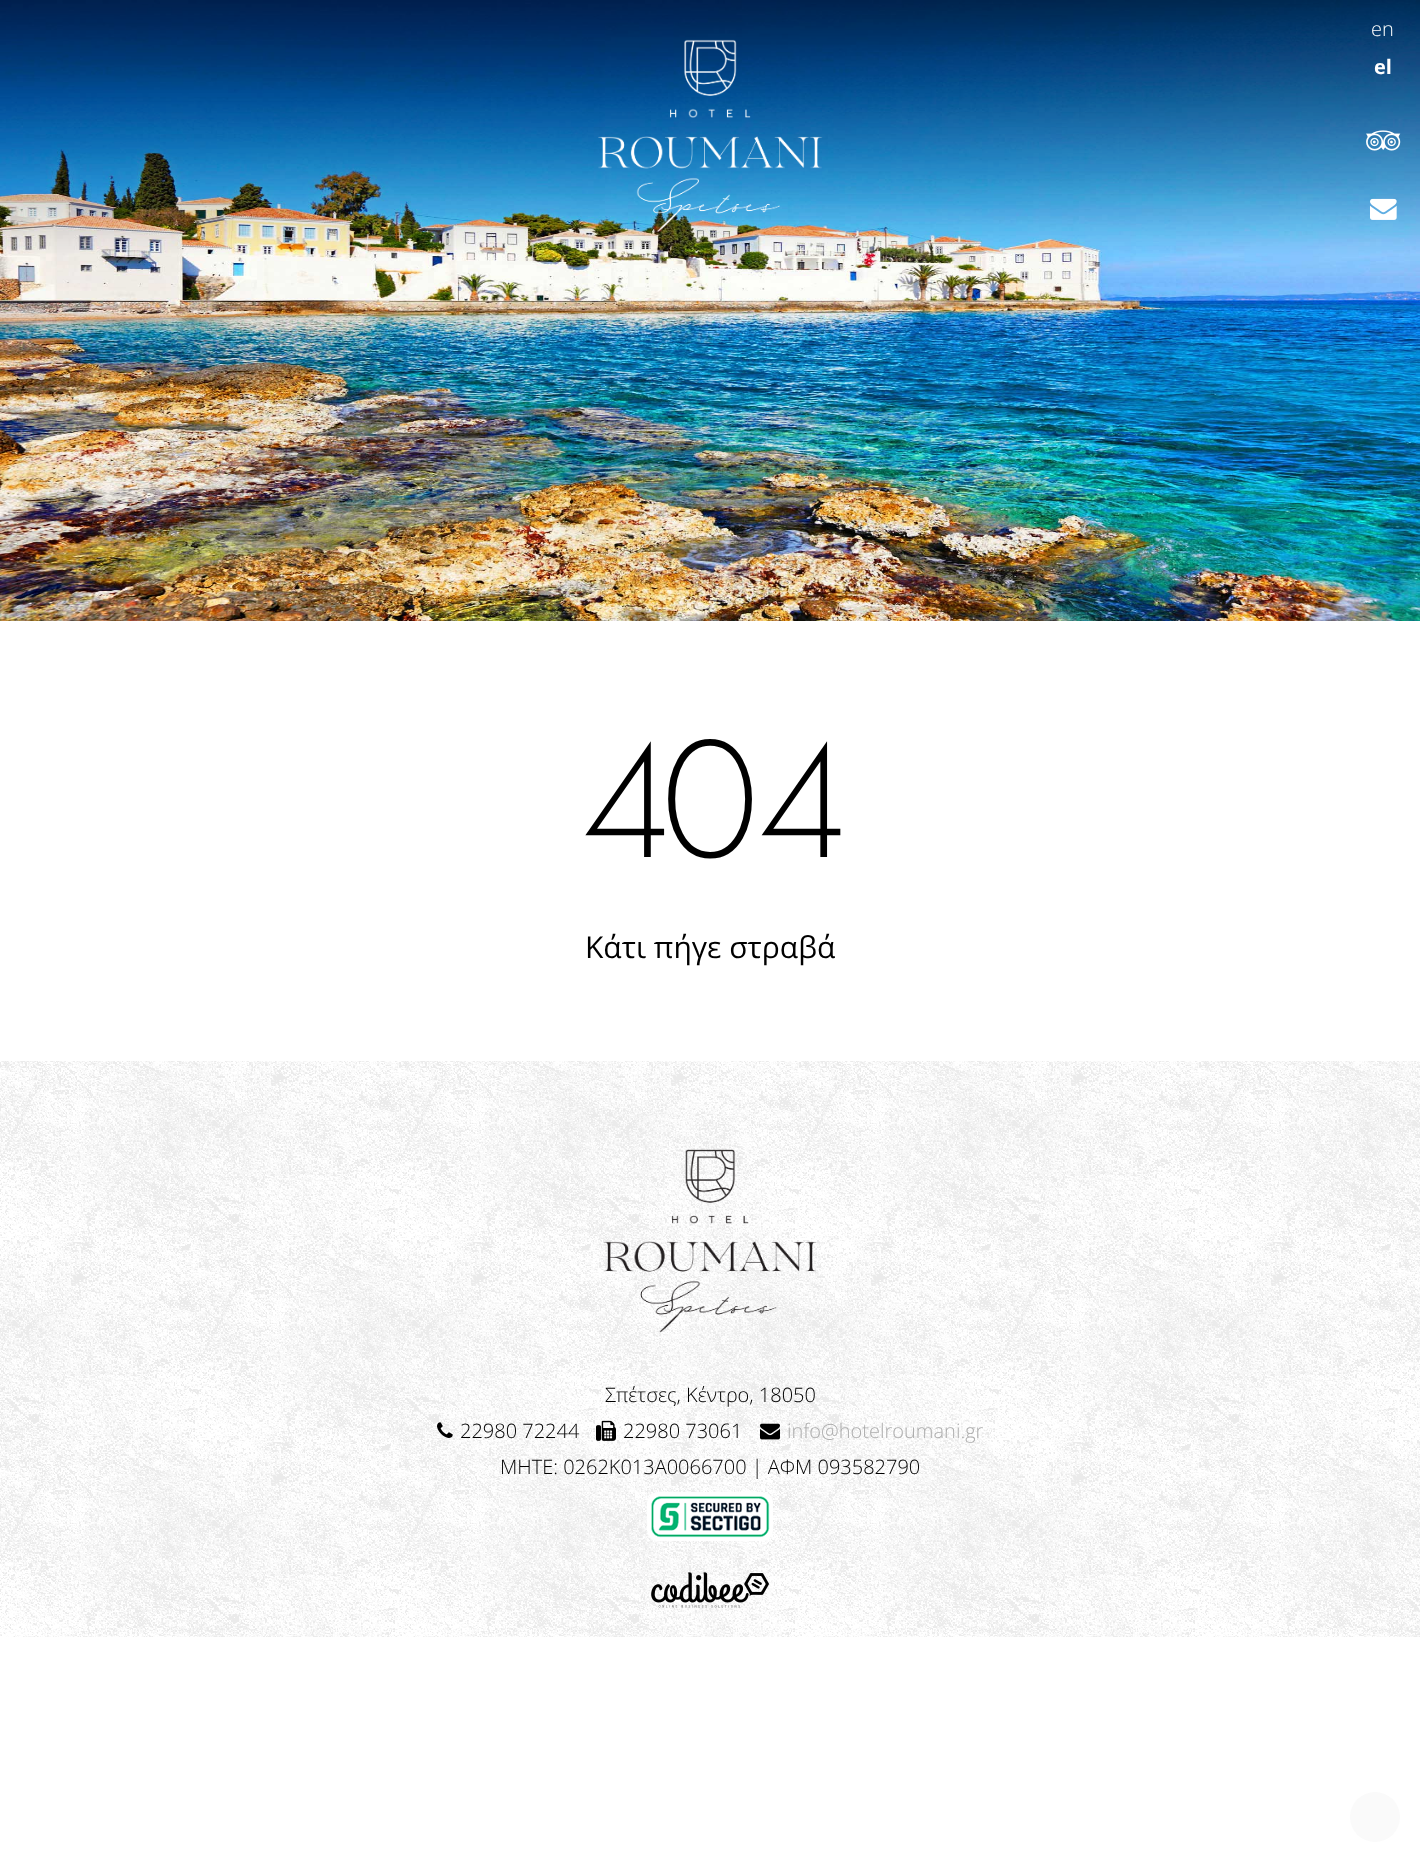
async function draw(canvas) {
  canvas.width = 1420
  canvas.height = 1862
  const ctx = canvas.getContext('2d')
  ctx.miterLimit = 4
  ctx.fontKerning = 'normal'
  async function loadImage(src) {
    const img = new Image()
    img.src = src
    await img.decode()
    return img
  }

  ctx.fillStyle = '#fff'
  ctx.fillRect(0, 0, 1420, 1862)
  ctx.drawImage(await loadImage('image3.png'), 0, 0, 1420, 621)
  ctx.drawImage(await loadImage('image0.png'), 598, 39, 225, 193)
  ctx.font = '300 20px Open Sans'
  ctx.fillText('en', 1371, 36)
  ctx.font = 'bold 20px Open Sans'
  ctx.fillText('el', 1374, 74)
  ctx.drawImage(await loadImage('image1.png'), 1366, 130, 35, 21)
  ctx.drawImage(await loadImage('image2.png'), 1370, 198, 27, 22)
  ctx.font = '300 160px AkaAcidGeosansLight'
  ctx.fillStyle = '#000'
  ctx.fillText('404', 578, 857)
  ctx.font = '30px Open Sans'
  ctx.fillText('Κάτι πήγε στραβά', 585, 958)
  ctx.drawImage(await loadImage('image4.png'), 0, 1061, 1420, 576)
  ctx.drawImage(await loadImage('image5.png'), 603, 1149, 214, 184)
  ctx.font = '300 20px Open Sans'
  ctx.fillText('Σπέτσες, Κέντρο, 18050', 605, 1402)
  ctx.drawImage(await loadImage('image6.png'), 437, 1422, 16, 16)
  ctx.fillText('22980 72244', 460, 1438)
  ctx.drawImage(await loadImage('image7.png'), 596, 1420, 20, 21)
  ctx.fillText('22980 73061', 623, 1438)
  ctx.drawImage(await loadImage('image8.png'), 760, 1423, 20, 17)
  ctx.fillStyle = '#adadad'
  ctx.fillText('info@hotelroumani.gr', 787, 1438)
  ctx.fillStyle = '#000'
  ctx.fillText('MHTE: 0262K013A0066700 | ΑΦΜ 093582790', 500, 1474)
  ctx.drawImage(await loadImage('image9.png'), 647, 1492, 126, 49)
  ctx.drawImage(await loadImage('image10.png'), 651, 1572, 118, 36)
  ctx.fillStyle = '#fafafa'
  ctx.beginPath()
  ctx.arc(1375, 1817, 25, 0, 2 * Math.PI)
  ctx.fill()
}

draw(document.querySelector('canvas'))
